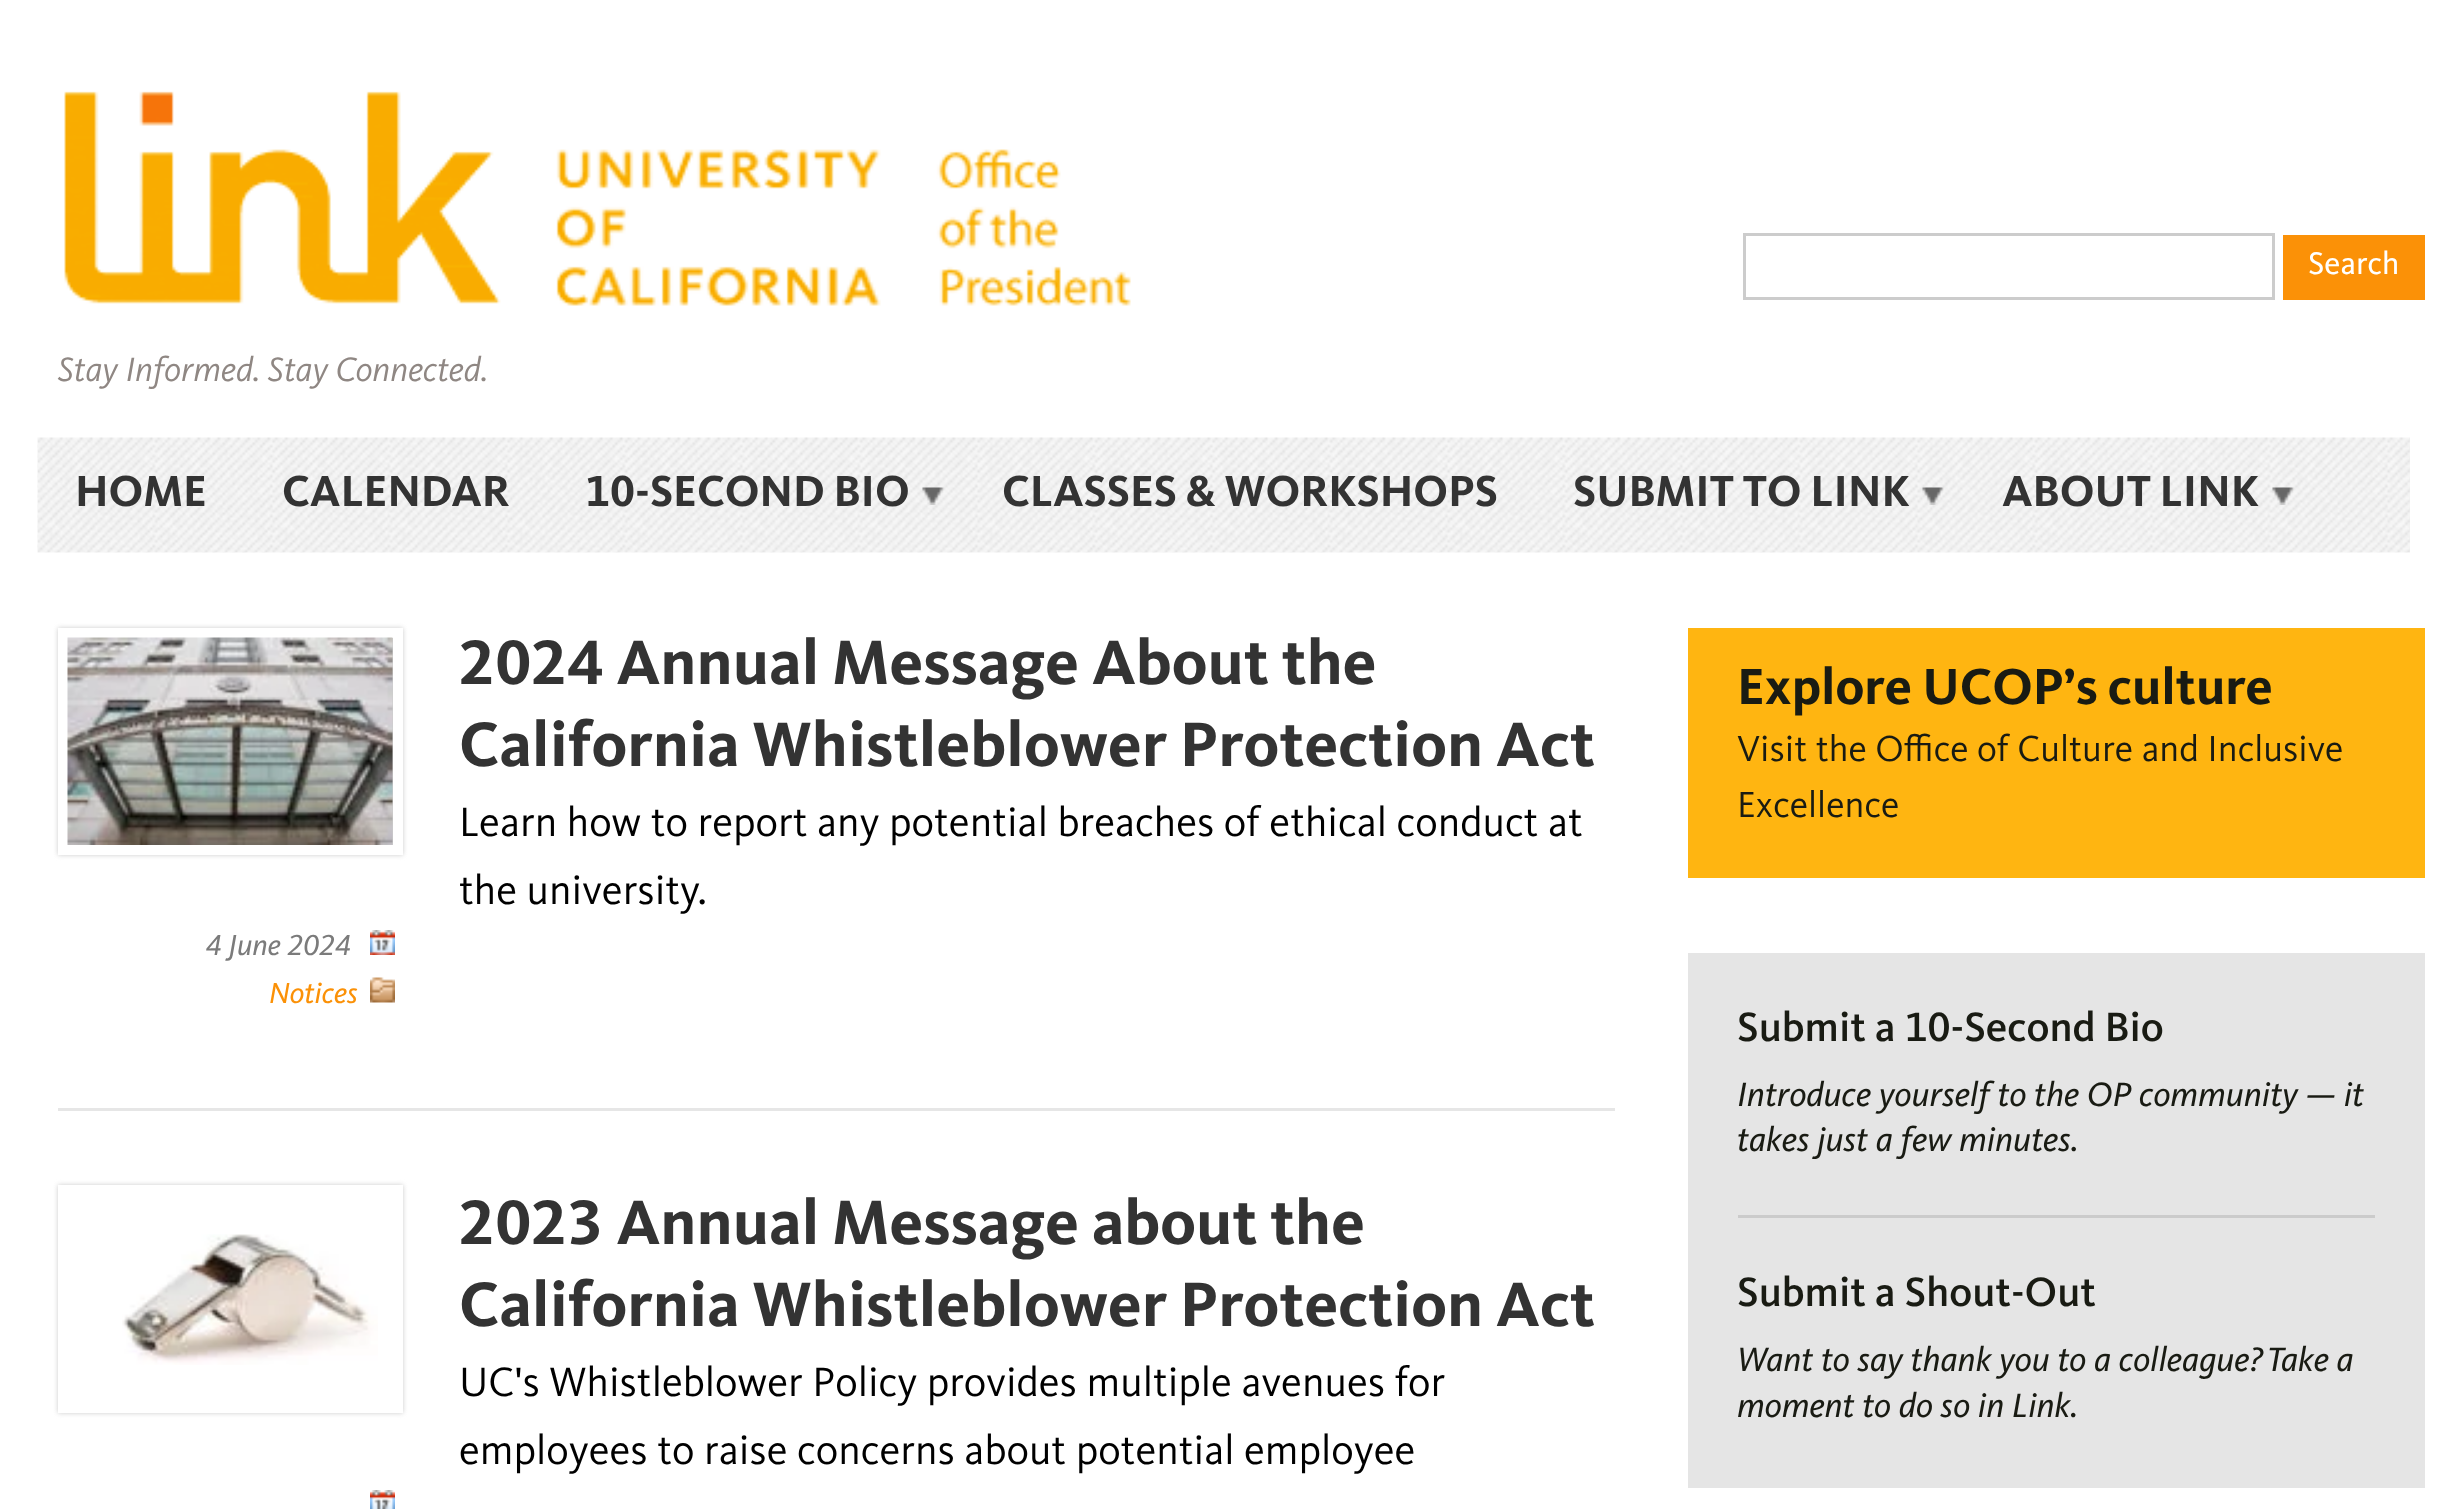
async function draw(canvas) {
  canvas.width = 2446
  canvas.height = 1509
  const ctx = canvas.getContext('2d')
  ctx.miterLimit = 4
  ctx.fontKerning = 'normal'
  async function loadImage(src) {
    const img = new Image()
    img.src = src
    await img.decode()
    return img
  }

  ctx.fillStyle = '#fff'
  ctx.fillRect(0, 0, 2446, 1509)
  ctx.strokeStyle = '#ccc'
  ctx.lineWidth = 3
  ctx.strokeRect(1744.5, 234.5, 529, 64)
  ctx.fillStyle = '#fb9107'
  ctx.fillRect(2283, 235, 142, 65)
  ctx.font = '32.5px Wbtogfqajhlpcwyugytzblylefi'
  ctx.fillStyle = '#fff'
  ctx.fillText('Search', 2308, 274)
  ctx.drawImage(await loadImage('image0.png'), 64, 91, 1067, 215)
  ctx.font = '35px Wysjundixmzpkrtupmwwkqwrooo'
  ctx.fillStyle = '#8f8783'
  ctx.fillText('Stay Informed. Stay Connected.', 58, 381)
  ctx.drawImage(await loadImage('image1.png'), 37, 437, 2373, 116)
  ctx.font = 'bold 45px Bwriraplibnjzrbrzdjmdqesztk'
  ctx.fillStyle = '#333'
  ctx.fillText('HOME', 75, 506)
  ctx.fillText('CALENDAR', 282, 506)
  ctx.fillText('10-SECOND BIO', 585, 506)
  ctx.drawImage(await loadImage('image2.png'), 922, 487, 22, 18)
  ctx.fillText('CLASSES & WORKSHOPS', 1002, 506)
  ctx.fillText('SUBMIT TO LINK', 1573, 506)
  ctx.drawImage(await loadImage('image3.png'), 1922, 487, 22, 18)
  ctx.fillText('ABOUT LINK', 2002, 506)
  ctx.drawImage(await loadImage('image4.png'), 2272, 487, 22, 18)
  ctx.font = 'bold 65px Bwriraplibnjzrbrzdjmdqesztk'
  ctx.fillText('2024 Annual Message About the', 459, 684)
  ctx.fillText('California Whistleblower Protection Act', 459, 766)
  ctx.font = '42.5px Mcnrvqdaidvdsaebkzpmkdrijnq'
  ctx.fillStyle = '#000'
  ctx.fillText('Learn how to report any potential breaches of ethical conduct at', 459, 836)
  ctx.fillText('the university.', 459, 904)
  ctx.fillStyle = '#ccc'
  ctx.filter = 'blur(2.5px)'
  ctx.beginPath()
  ctx.rect(58, 628, 345, 227)
  ctx.fill()
  ctx.filter = 'none'
  ctx.strokeStyle = '#fff'
  ctx.lineWidth = 10
  ctx.strokeRect(63, 633, 335, 217)
  ctx.drawImage(await loadImage('image5.png'), 67, 637, 326, 208)
  ctx.font = '30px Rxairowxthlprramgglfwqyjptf'
  ctx.fillStyle = '#7b7b7b'
  ctx.fillText('4 June 2024', 206, 955)
  ctx.drawImage(await loadImage('image6.png'), 370, 930, 25, 25)
  ctx.fillStyle = '#fb9107'
  ctx.fillText('Notices', 269, 1003)
  ctx.drawImage(await loadImage('image7.png'), 370, 977, 25, 26)
  ctx.fillStyle = '#e6e6e6'
  ctx.fillRect(58, 1108, 1557, 3)
  ctx.save()
  ctx.beginPath()
  ctx.moveTo(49, 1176)
  ctx.lineTo(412, 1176)
  ctx.lineTo(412, 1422)
  ctx.lineTo(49, 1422)
  ctx.closePath()
  ctx.moveTo(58, 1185)
  ctx.lineTo(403, 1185)
  ctx.lineTo(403, 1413)
  ctx.lineTo(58, 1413)
  ctx.closePath()
  ctx.clip('evenodd')
  ctx.fillStyle = '#ccc'
  ctx.filter = 'blur(2.5px)'
  ctx.beginPath()
  ctx.rect(58, 1185, 345, 228)
  ctx.fill()
  ctx.filter = 'none'
  ctx.restore()
  ctx.strokeRect(63, 1190, 335, 218)
  ctx.drawImage(await loadImage('image8.png'), 122, 1234, 256, 131)
  ctx.drawImage(await loadImage('image9.png'), 370, 1490, 25, 19)
  ctx.font = 'bold 65px Bwriraplibnjzrbrzdjmdqesztk'
  ctx.fillStyle = '#333'
  ctx.fillText('2023 Annual Message about the', 459, 1244)
  ctx.fillText('California Whistleblower Protection Act', 459, 1326)
  ctx.font = '42.5px Mcnrvqdaidvdsaebkzpmkdrijnq'
  ctx.fillStyle = '#000'
  ctx.fillText('UC\'s Whistleblower Policy provides multiple avenues for', 459, 1396)
  ctx.fillText('employees to raise concerns about potential employee', 459, 1464)
  ctx.fillStyle = '#ffb511'
  ctx.fillRect(1688, 628, 737, 250)
  ctx.font = 'bold 52.5px Bwriraplibnjzrbrzdjmdqesztk'
  ctx.fillStyle = '#191b13'
  ctx.fillText('Explore UCOP’s culture', 1737, 704)
  ctx.font = '37.5px Mcnrvqdaidvdsaebkzpmkdrijnq'
  ctx.fillText('Visit the Office of Culture and Inclusive', 1737, 761)
  ctx.fillText('Excellence', 1737, 817)
  ctx.fillStyle = '#e5e5e5'
  ctx.fillRect(1688, 953, 737, 535)
  ctx.font = '500 42.5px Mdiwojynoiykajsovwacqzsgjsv'
  ctx.fillStyle = '#191b13'
  ctx.fillText('Submit a 10-Second Bio', 1737, 1041)
  ctx.font = '35px Rxairowxthlprramgglfwqyjptf'
  ctx.fillText('Introduce yourself to the OP community — it', 1737, 1106)
  ctx.fillText('takes just a few minutes.', 1737, 1151)
  ctx.fillStyle = '#cbcbcb'
  ctx.fillRect(1738, 1215, 637, 3)
  ctx.font = '500 42.5px Mdiwojynoiykajsovwacqzsgjsv'
  ctx.fillStyle = '#191b13'
  ctx.fillText('Submit a Shout-Out', 1737, 1306)
  ctx.font = '35px Rxairowxthlprramgglfwqyjptf'
  ctx.fillText('Want to say thank you to a colleague? Take a', 1737, 1371)
  ctx.fillText('moment to do so in Link.', 1737, 1417)
}

draw(document.querySelector('canvas'))
